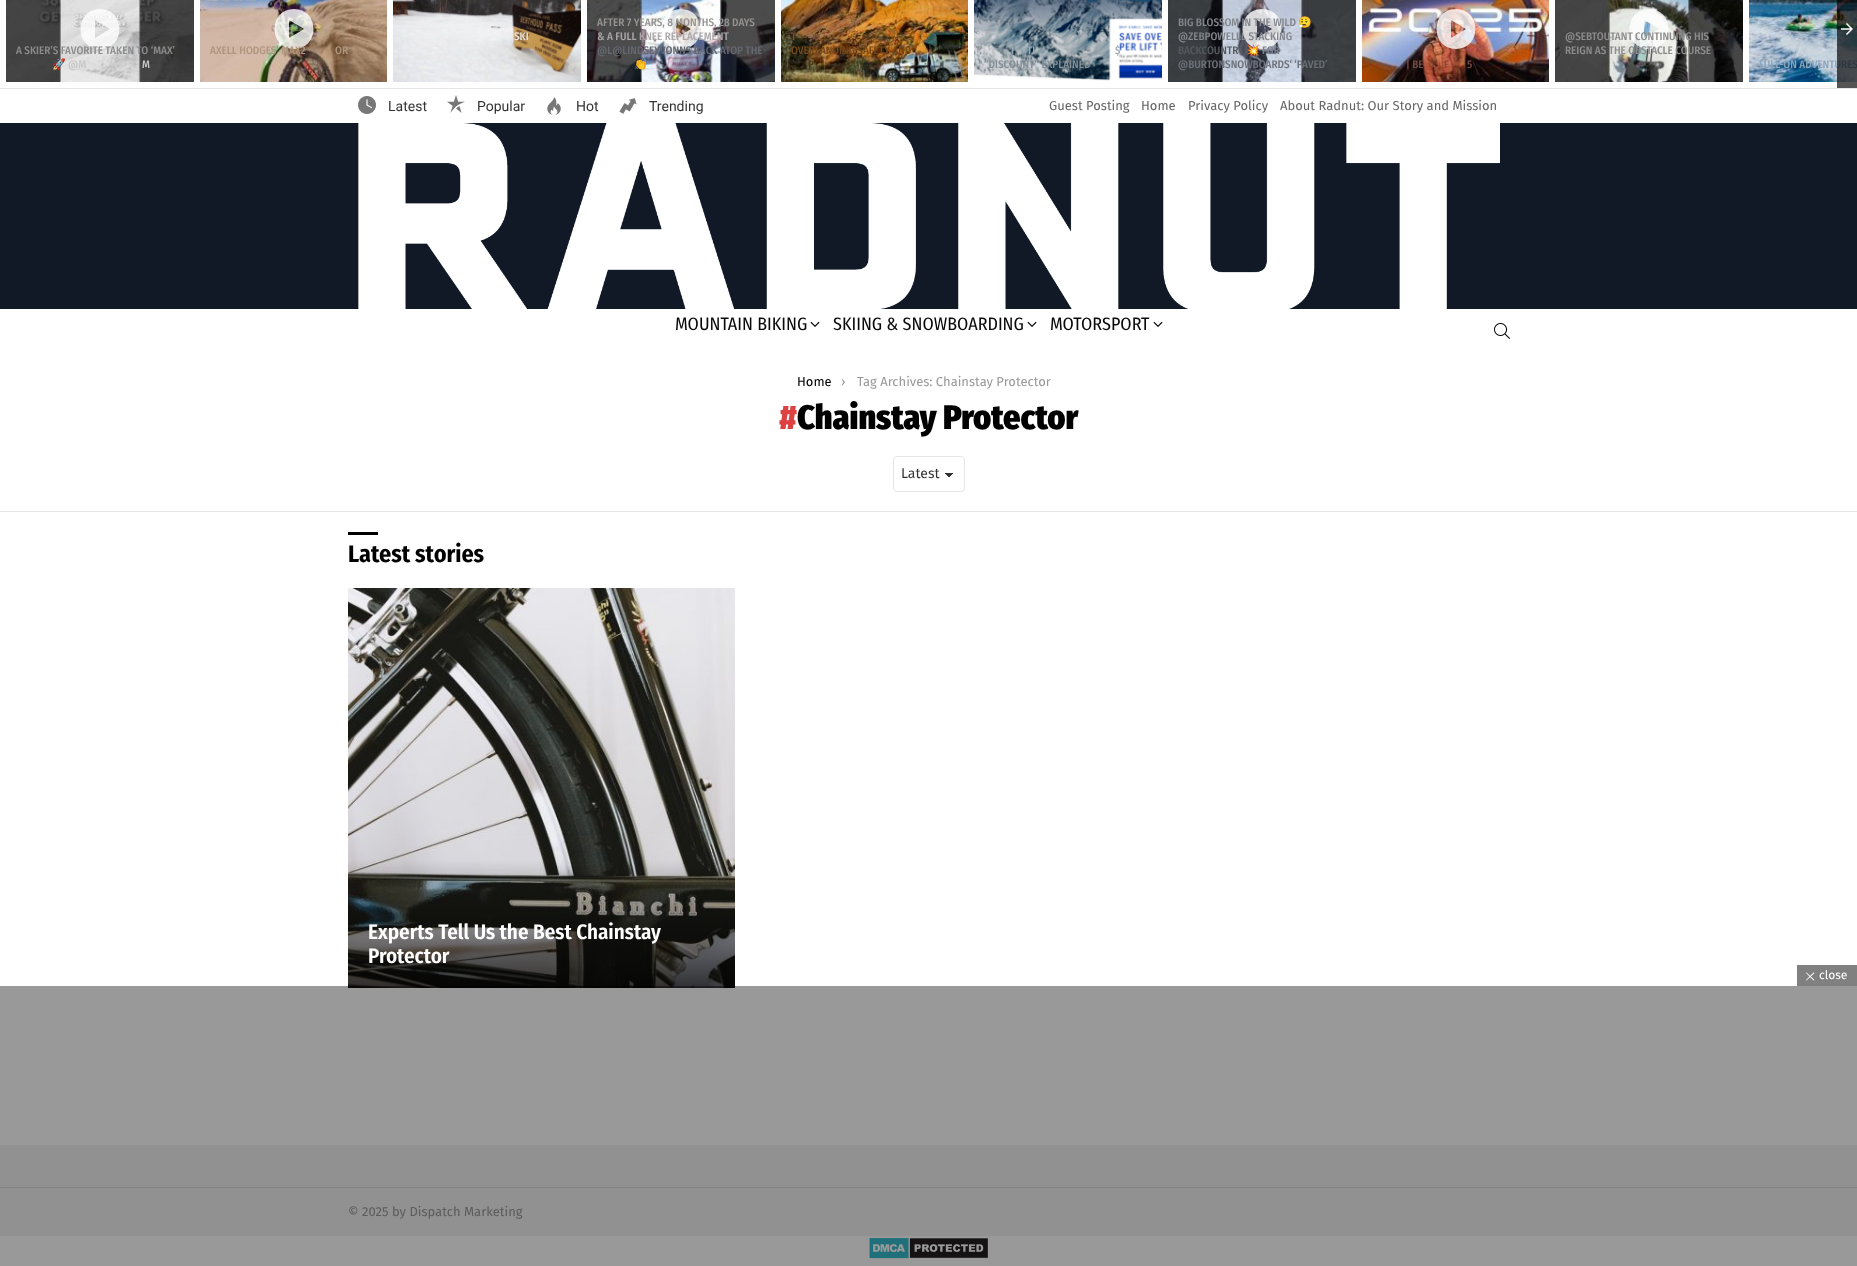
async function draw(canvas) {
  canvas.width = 1857
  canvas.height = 1266
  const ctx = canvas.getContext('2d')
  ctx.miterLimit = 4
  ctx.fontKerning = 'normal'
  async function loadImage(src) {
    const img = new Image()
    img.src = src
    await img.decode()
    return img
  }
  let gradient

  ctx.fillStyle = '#fff'
  ctx.fillRect(0, 0, 1857, 1266)
  ctx.fillStyle = '#e6e6e6'
  ctx.fillRect(0, 88, 1857, 1)
  ctx.drawImage(await loadImage('image10.png'), 1749, 0, 108, 82)
  ctx.font = '500 11px Fira Sans Condensed'
  ctx.fillStyle = '#8aa6bd'
  ctx.fillText('FULL-ON ADVENTURES', 1759, 68)
  ctx.fillStyle = '#000000ab'
  ctx.fillRect(1837, 0, 20, 88)
  ctx.drawImage(await loadImage('image0.png'), 1841, 23, 12, 12)
  ctx.drawImage(await loadImage('image1.png'), 6, 0, 188, 82)
  ctx.fillStyle = '#ffffffcc'
  ctx.beginPath()
  ctx.moveTo(100, 9)
  ctx.bezierCurveTo(74, 9, 74, 49, 100, 49)
  ctx.bezierCurveTo(126, 49, 126, 9, 100, 9)
  ctx.closePath()
  ctx.moveTo(95, 38)
  ctx.lineTo(95, 20)
  ctx.lineTo(110, 29)
  ctx.closePath()
  ctx.fill()
  ctx.fillStyle = '#8c8c8c'
  ctx.fillText('A SKIER’S FAVORITE TAKEN TO ‘MAX’', 16, 54)
  ctx.font = '11px Noto Color Emoji'
  ctx.fillStyle = '#757575'
  ctx.fillText('🚀', 52, 68)
  ctx.font = '500 11px Fira Sans Condensed'
  ctx.fillStyle = '#c7c7c7'
  ctx.fillText('@M', 68, 68)
  ctx.fillText('M', 142, 68)
  ctx.drawImage(await loadImage('image2.png'), 200, 0, 187, 82)
  ctx.fillStyle = '#ffffffcc'
  ctx.beginPath()
  ctx.moveTo(294, 9)
  ctx.bezierCurveTo(268, 9, 268, 49, 294, 49)
  ctx.bezierCurveTo(320, 49, 320, 9, 294, 9)
  ctx.closePath()
  ctx.moveTo(289, 38)
  ctx.lineTo(289, 20)
  ctx.lineTo(304, 29)
  ctx.closePath()
  ctx.fill()
  ctx.fillStyle = '#af967f'
  ctx.fillText('AXELL HODGES’ MAX2', 210, 54)
  ctx.fillText('OR', 335, 54)
  ctx.drawImage(await loadImage('image3.png'), 393, 0, 188, 82)
  ctx.fillStyle = '#e4e0db'
  ctx.fillText('SKI', 514, 40)
  ctx.drawImage(await loadImage('image4.png'), 587, 0, 188, 82)
  ctx.fillStyle = '#ffffffcc'
  ctx.beginPath()
  ctx.moveTo(681, 9)
  ctx.bezierCurveTo(655, 9, 655, 49, 681, 49)
  ctx.bezierCurveTo(707, 49, 707, 9, 681, 9)
  ctx.closePath()
  ctx.moveTo(676, 38)
  ctx.lineTo(676, 20)
  ctx.lineTo(691, 29)
  ctx.closePath()
  ctx.fill()
  ctx.fillStyle = '#969492'
  ctx.fillText('AFTER 7 YEARS, 8 MONTHS, 28 DAYS', 597, 26)
  ctx.fillStyle = '#aba7a9'
  ctx.fillText('& A FULL KNEE REPLACEMENT', 597, 40)
  ctx.fillStyle = '#656871'
  ctx.fillText('@L@LINDSEYVONNS BACK ATOP THE', 597, 54)
  ctx.font = '11px Noto Color Emoji'
  ctx.fillStyle = '#555d69'
  ctx.fillText('👏', 634, 68)
  ctx.drawImage(await loadImage('image5.png'), 781, 0, 187, 82)
  ctx.font = '500 11px Fira Sans Condensed'
  ctx.fillStyle = '#7c5328'
  ctx.fillText('T', 791, 40)
  ctx.fillStyle = '#74481b'
  ctx.fillText('OVERLANDING SAFETY AND', 791, 54)
  ctx.fillStyle = '#46361a'
  ctx.fillText('P', 808, 68)
  ctx.drawImage(await loadImage('image6.png'), 974, 0, 188, 82)
  ctx.fillStyle = '#9daab4'
  ctx.fillText('I', 1011, 54)
  ctx.fillText('TI', 1027, 54)
  ctx.fillText('$', 1115, 54)
  ctx.fillStyle = '#828f97'
  ctx.fillText('“DISCOUNT” EXPLAINED', 984, 68)
  ctx.drawImage(await loadImage('image7.png'), 1168, 0, 188, 82)
  ctx.fillStyle = '#ffffffcc'
  ctx.beginPath()
  ctx.moveTo(1262, 9)
  ctx.bezierCurveTo(1236, 9, 1236, 49, 1262, 49)
  ctx.bezierCurveTo(1288, 49, 1288, 9, 1262, 9)
  ctx.closePath()
  ctx.moveTo(1257, 38)
  ctx.lineTo(1257, 20)
  ctx.lineTo(1272, 29)
  ctx.closePath()
  ctx.fill()
  ctx.fillStyle = '#83868d'
  ctx.fillText('BIG BLOSSOM IN THE WILD', 1178, 26)
  ctx.font = '11px Noto Color Emoji'
  ctx.fillStyle = '#565960'
  ctx.fillText('😮‍💨', 1298, 26)
  ctx.font = '500 11px Fira Sans Condensed'
  ctx.fillStyle = '#83868d'
  ctx.fillText('@ZEBPOWELLL STACKING', 1178, 40)
  ctx.fillStyle = '#565960'
  ctx.fillText('BACKCOUNTR', 1178, 54)
  ctx.font = '11px Noto Color Emoji'
  ctx.fillStyle = '#656871'
  ctx.fillText('💥', 1246, 54)
  ctx.font = '500 11px Fira Sans Condensed'
  ctx.fillStyle = '#7b818e'
  ctx.fillText('FOR', 1262, 54)
  ctx.fillStyle = '#6c717a'
  ctx.fillText('@BURTONSNOWBOARDS‘ ‘PAVED’', 1178, 68)
  ctx.drawImage(await loadImage('image8.png'), 1555, 0, 188, 82)
  ctx.fillStyle = '#ffffffcc'
  ctx.beginPath()
  ctx.moveTo(1649, 9)
  ctx.bezierCurveTo(1623, 9, 1623, 49, 1649, 49)
  ctx.bezierCurveTo(1675, 49, 1675, 9, 1649, 9)
  ctx.closePath()
  ctx.moveTo(1644, 38)
  ctx.lineTo(1644, 20)
  ctx.lineTo(1659, 29)
  ctx.closePath()
  ctx.fill()
  ctx.fillStyle = '#8c8c8c'
  ctx.fillText('@SEBTOUTANT CONTINUING HIS', 1565, 40)
  ctx.fillText('REIGN AS THE OBSTACLE COURSE', 1565, 54)
  ctx.drawImage(await loadImage('image9.png'), 1362, 0, 187, 82)
  ctx.fillStyle = '#ffffffcc'
  ctx.beginPath()
  ctx.moveTo(1456, 9)
  ctx.bezierCurveTo(1430, 9, 1430, 49, 1456, 49)
  ctx.bezierCurveTo(1482, 49, 1482, 9, 1456, 9)
  ctx.closePath()
  ctx.moveTo(1451, 38)
  ctx.lineTo(1451, 20)
  ctx.lineTo(1466, 29)
  ctx.closePath()
  ctx.fill()
  ctx.fillStyle = '#774b43'
  ctx.fillText('| BE', 1406, 68)
  ctx.fillText('F', 1444, 68)
  ctx.fillText('5', 1467, 68)
  ctx.drawImage(await loadImage('image11.png'), 358, 96, 18, 18)
  ctx.font = '14px Roboto'
  ctx.fillStyle = '#333'
  ctx.fillText('Latest', 388, 111)
  ctx.drawImage(await loadImage('image12.png'), 447, 95, 18, 18)
  ctx.fillText('Popular', 477, 111)
  ctx.drawImage(await loadImage('image13.png'), 547, 97, 14, 18)
  ctx.fillText('Hot', 576, 111)
  ctx.drawImage(await loadImage('image14.png'), 619, 98, 18, 16)
  ctx.fillText('Trending', 649, 111)
  ctx.font = '13px Fira Sans'
  ctx.fillStyle = '#666'
  ctx.fillText('Guest Posting', 1049, 110)
  ctx.fillText('Home', 1141, 110)
  ctx.fillText('Privacy Policy', 1188, 110)
  ctx.fillText('About Radnut: Our Story and Mission', 1280, 110)
  ctx.fillStyle = '#101925'
  ctx.fillRect(0, 123, 1857, 186)
  ctx.drawImage(await loadImage('image15.png'), 358, 123, 1142, 186)
  ctx.font = '18px Fira Sans Condensed'
  ctx.fillStyle = '#0a0a0a'
  ctx.fillText('MOUNTAIN BIKING', 675, 330)
  ctx.drawImage(await loadImage('image16.png'), 810, 321, 10, 6)
  ctx.fillText('SKIING & SNOWBOARDING', 833, 330)
  ctx.drawImage(await loadImage('image16.png'), 1027, 321, 10, 6)
  ctx.fillText('MOTORSPORT', 1050, 330)
  ctx.drawImage(await loadImage('image16.png'), 1153, 321, 10, 6)
  ctx.drawImage(await loadImage('image17.png'), 1494, 323, 16, 16)
  ctx.font = '13px Fira Sans'
  ctx.fillStyle = '#000'
  ctx.fillText('Home', 797, 386)
  ctx.fillStyle = '#999'
  ctx.fillText('›', 841, 386)
  ctx.fillText('Tag Archives: Chainstay Protector', 857, 386)
  ctx.font = '900 34px Fira Sans Condensed'
  ctx.fillStyle = '#dd4242'
  ctx.fillText('#', 779, 429)
  ctx.fillStyle = '#000'
  ctx.fillText('Chainstay Protector', 797, 429)
  gradient = ctx.createLinearGradient(949, 473, 954, 477)
  gradient.addColorStop(0.5, '#333')
  gradient.addColorStop(0.5, '#fff')
  ctx.fillStyle = gradient
  ctx.fillRect(949, 473, 5, 4)
  gradient = ctx.createLinearGradient(944, 477, 949, 473)
  gradient.addColorStop(0.5, '#fff')
  gradient.addColorStop(0.5, '#333')
  ctx.fillStyle = gradient
  ctx.fillRect(944, 473, 5, 4)
  ctx.beginPath()
  ctx.roundRect(893.5, 456.5, 71, 35, 3.5)
  ctx.strokeStyle = '#e6e6e6'
  ctx.stroke()
  ctx.font = '14px Fira Sans'
  ctx.fillStyle = '#333'
  ctx.fillText('Latest', 901, 478)
  ctx.fillStyle = '#e6e6e6'
  ctx.fillRect(0, 511, 1857, 1)
  ctx.fillStyle = '#000'
  ctx.fillRect(348, 532, 30, 3)
  ctx.font = 'bold 24px Fira Sans Condensed'
  ctx.fillText('Latest stories', 348, 562)
  ctx.drawImage(await loadImage('image18.png'), 348, 588, 387, 400)
  ctx.font = '600 21px Fira Sans Condensed'
  ctx.fillStyle = '#fff'
  ctx.fillText('Experts Tell Us the Best Chainstay', 368, 939)
  ctx.fillText('Protector', 368, 963)
  ctx.fillStyle = '#f2f2f2'
  ctx.fillRect(0, 1145, 1857, 42)
  ctx.fillStyle = '#dbdbdb'
  ctx.fillRect(0, 1187, 1857, 1)
  ctx.fillStyle = '#f2f2f2'
  ctx.fillRect(0, 1188, 1857, 48)
  ctx.font = '13px Fira Sans'
  ctx.fillStyle = '#999'
  ctx.fillText('© 2025 by Dispatch Marketing', 348, 1216)
  ctx.drawImage(await loadImage('image19.png'), 869, 1238, 119, 21)
  ctx.fillStyle = '#00000066'
  ctx.fillRect(0, 986, 1857, 280)
  ctx.fillStyle = '#808080'
  ctx.fillRect(1797, 965, 60, 21)
  ctx.fillStyle = '#fff'
  ctx.beginPath()
  ctx.moveTo(1806.5, 972.5)
  ctx.lineTo(1814.5, 980)
  ctx.lineTo(1813.5, 980.5)
  ctx.lineTo(1806, 973)
  ctx.closePath()
  ctx.fill()
  ctx.font = '12px Fira Sans'
  ctx.fillText('close', 1819, 979)
  ctx.beginPath()
  ctx.moveTo(1813.5, 972.5)
  ctx.lineTo(1814.5, 973)
  ctx.lineTo(1806.5, 980.5)
  ctx.lineTo(1806, 980)
  ctx.closePath()
  ctx.fill()
}

draw(document.querySelector('canvas'))
